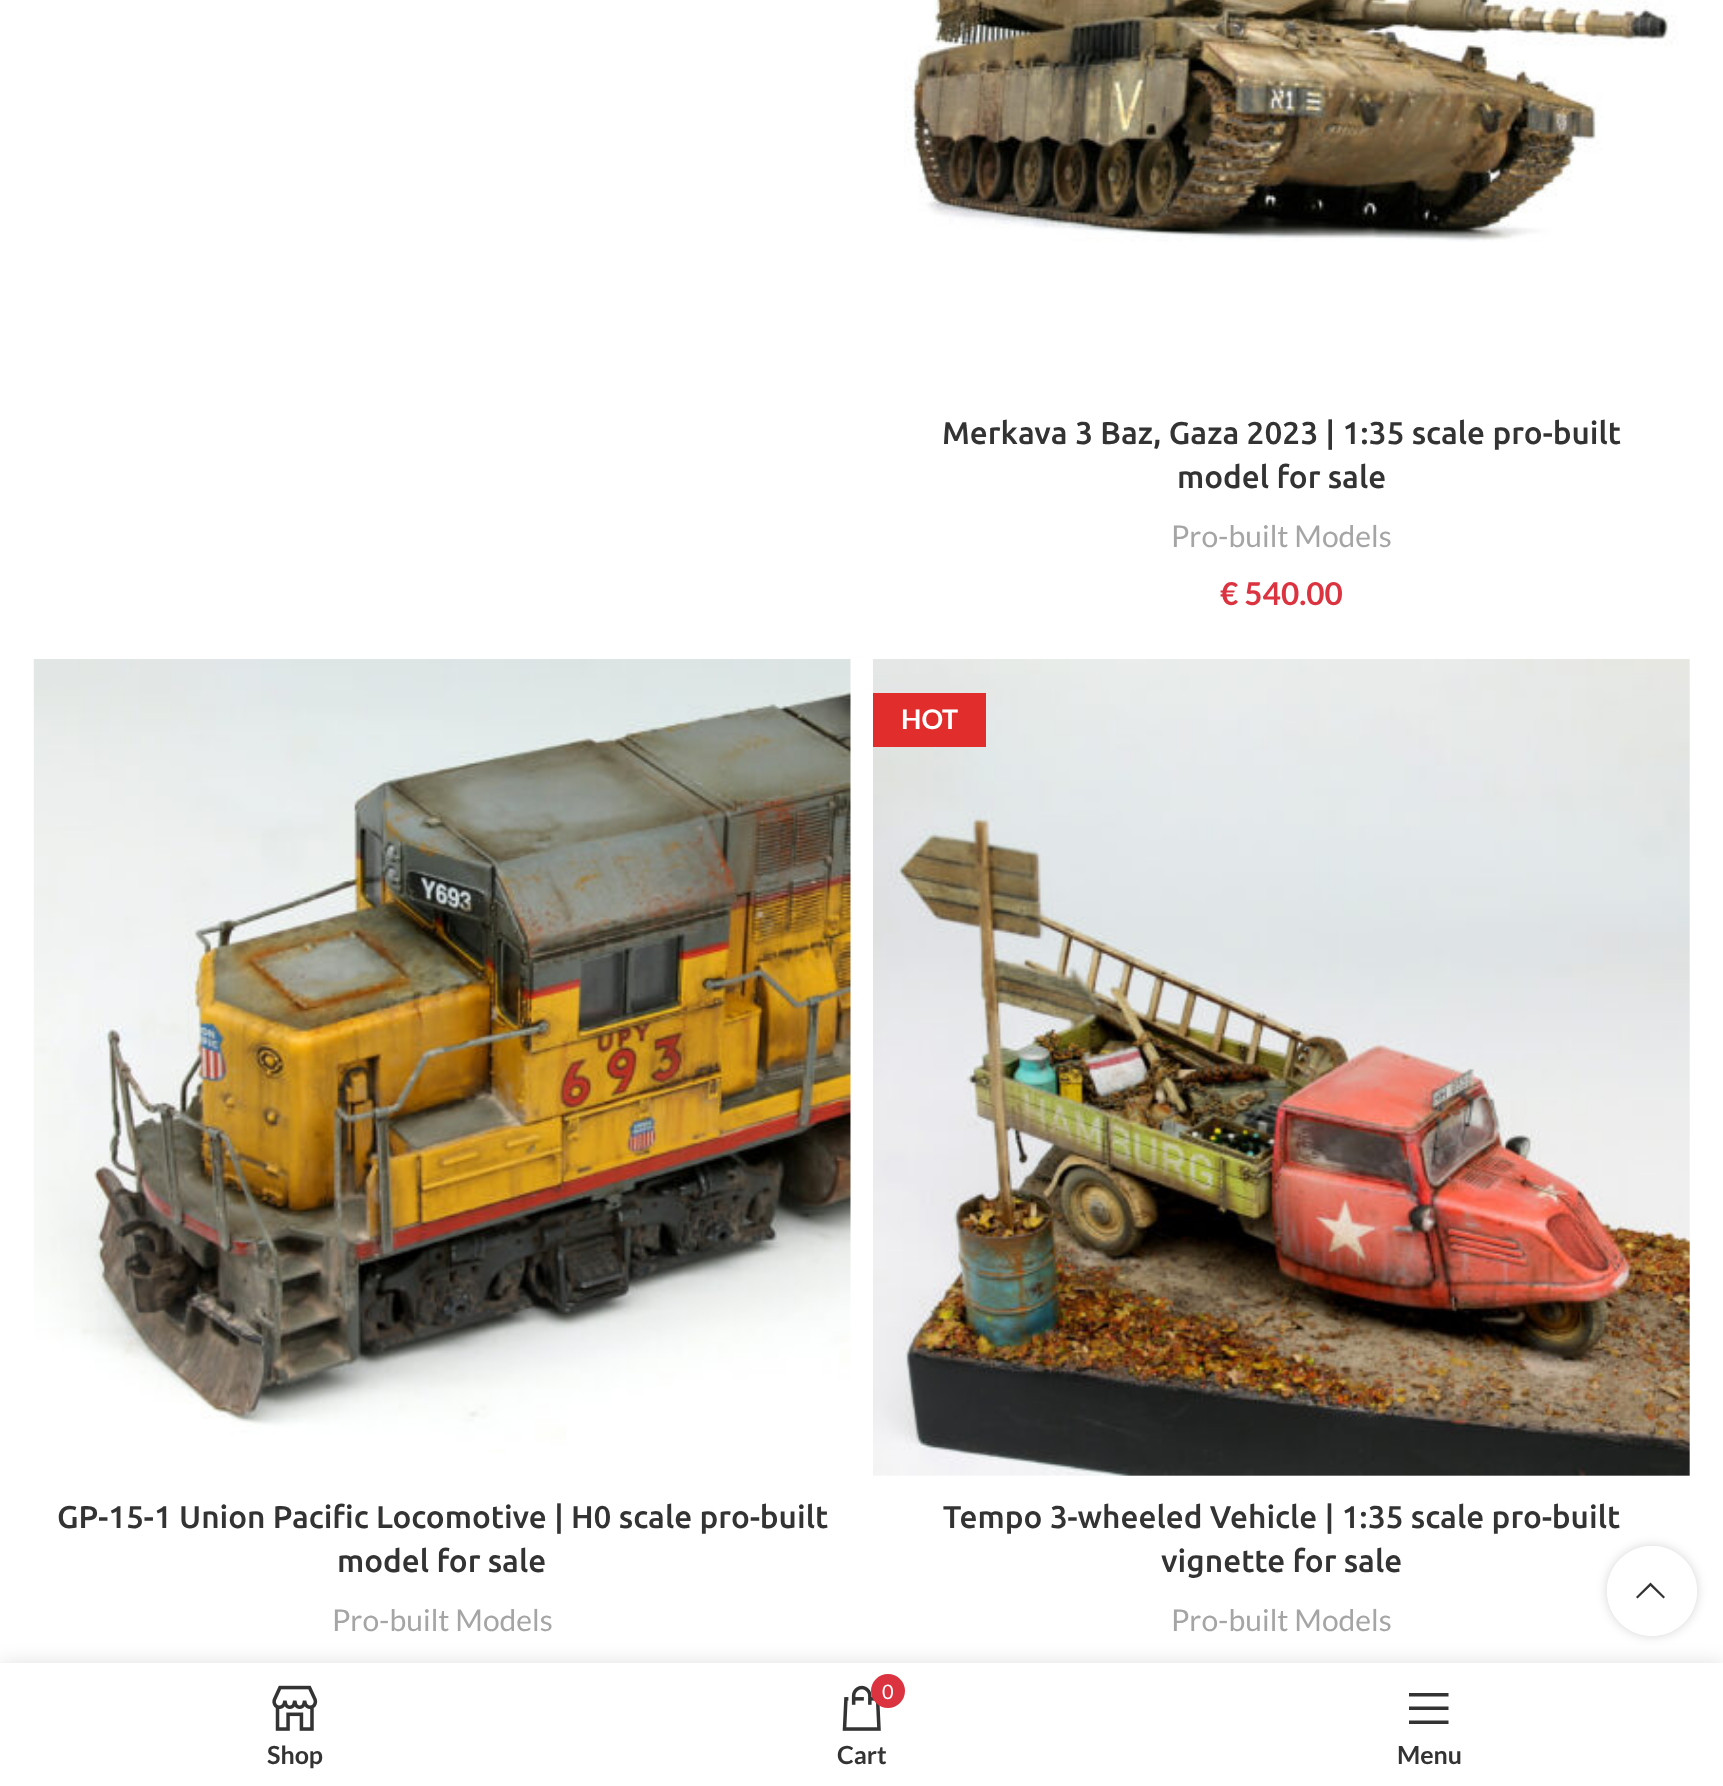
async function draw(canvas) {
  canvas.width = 1723
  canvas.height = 1786
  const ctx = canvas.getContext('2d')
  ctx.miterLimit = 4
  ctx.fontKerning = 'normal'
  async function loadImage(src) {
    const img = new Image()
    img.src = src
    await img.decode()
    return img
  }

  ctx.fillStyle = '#fff'
  ctx.fillRect(0, 0, 1723, 1786)
  ctx.drawImage(await loadImage('image0.png'), 904, 0, 774, 242)
  ctx.font = '500 31.5px Ubuntu'
  ctx.fillStyle = '#333'
  ctx.fillText('Merkava 3 Baz, Gaza 2023 | 1:35 scale pro-built', 942, 444)
  ctx.fillText('model for sale', 1177, 488)
  ctx.font = '30px Lato'
  ctx.fillStyle = '#a5a5a5'
  ctx.fillText('Pro-built Models', 1171, 547)
  ctx.font = 'bold 31.5px Lato'
  ctx.fillStyle = '#db3340'
  ctx.fillText('€ 540.00', 1220, 605)
  ctx.drawImage(await loadImage('image1.png'), 33, 659, 818, 794)
  ctx.font = '500 31.5px Ubuntu'
  ctx.fillStyle = '#333'
  ctx.fillText('GP-15-1 Union Pacific Locomotive | H0 scale pro-built', 57, 1528)
  ctx.fillText('model for sale', 337, 1572)
  ctx.font = '30px Lato'
  ctx.fillStyle = '#a5a5a5'
  ctx.fillText('Pro-built Models', 332, 1631)
  ctx.drawImage(await loadImage('image2.png'), 873, 659, 817, 817)
  ctx.fillStyle = '#e22d2d'
  ctx.fillRect(873, 693, 113, 54)
  ctx.font = 'bold 27px Lato'
  ctx.fillStyle = '#fff'
  ctx.fillText('HOT', 901, 729)
  ctx.font = '500 31.5px Ubuntu'
  ctx.fillStyle = '#333'
  ctx.fillText('Tempo 3-wheeled Vehicle | 1:35 scale pro-built', 943, 1528)
  ctx.fillText('vignette for sale', 1161, 1572)
  ctx.font = '30px Lato'
  ctx.fillStyle = '#a5a5a5'
  ctx.fillText('Pro-built Models', 1171, 1631)
  ctx.save()
  ctx.beginPath()
  ctx.moveTo(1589, 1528)
  ctx.lineTo(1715, 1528)
  ctx.lineTo(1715, 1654)
  ctx.lineTo(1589, 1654)
  ctx.closePath()
  ctx.moveTo(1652, 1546)
  ctx.bezierCurveTo(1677, 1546, 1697, 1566, 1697, 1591)
  ctx.bezierCurveTo(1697, 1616, 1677, 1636, 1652, 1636)
  ctx.bezierCurveTo(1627, 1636, 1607, 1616, 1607, 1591)
  ctx.bezierCurveTo(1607, 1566, 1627, 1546, 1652, 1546)
  ctx.closePath()
  ctx.clip('evenodd')
  ctx.fillStyle = '#0000002b'
  ctx.filter = 'blur(5.5px)'
  ctx.beginPath()
  ctx.roundRect(1607, 1546, 90, 90, 45)
  ctx.fill()
  ctx.filter = 'none'
  ctx.restore()
  ctx.fillStyle = '#ffffffe6'
  ctx.beginPath()
  ctx.arc(1652, 1591, 45, 0, 2 * Math.PI)
  ctx.fill()
  ctx.fillStyle = '#333'
  ctx.beginPath()
  ctx.moveTo(1663.5, 1598.5)
  ctx.lineTo(1665, 1597)
  ctx.lineTo(1650.5, 1582.5)
  ctx.lineTo(1636, 1597)
  ctx.lineTo(1637.5, 1598.5)
  ctx.lineTo(1650.5, 1586)
  ctx.closePath()
  ctx.fill()
  ctx.fillStyle = '#0000001f'
  ctx.filter = 'blur(10px)'
  ctx.beginPath()
  ctx.rect(0, 1663, 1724, 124)
  ctx.fill()
  ctx.filter = 'none'
  ctx.fillStyle = '#fff'
  ctx.fillRect(0, 1663, 1723, 123)
  ctx.drawImage(await loadImage('image3.png'), 272, 1685, 46, 46)
  ctx.font = 'bold 25px Lato'
  ctx.fillStyle = '#333'
  ctx.fillText('Shop', 267, 1764)
  ctx.drawImage(await loadImage('image4.png'), 842, 1685, 39, 46)
  ctx.fillStyle = '#db3340'
  ctx.beginPath()
  ctx.arc(888, 1691, 17, 0, 2 * Math.PI)
  ctx.fill()
  ctx.font = '20px Lato'
  ctx.fillStyle = '#fff'
  ctx.fillText('0', 882, 1699)
  ctx.font = 'bold 25px Lato'
  ctx.fillStyle = '#333'
  ctx.fillText('Cart', 837, 1764)
  ctx.beginPath()
  ctx.moveTo(1409, 1696.5)
  ctx.lineTo(1448.5, 1696.5)
  ctx.lineTo(1448.5, 1693)
  ctx.lineTo(1409, 1693)
  ctx.closePath()
  ctx.moveTo(1409, 1710)
  ctx.lineTo(1448.5, 1710)
  ctx.lineTo(1448.5, 1706.5)
  ctx.lineTo(1409, 1706.5)
  ctx.closePath()
  ctx.moveTo(1409, 1724)
  ctx.lineTo(1448.5, 1724)
  ctx.lineTo(1448.5, 1720.5)
  ctx.lineTo(1409, 1720.5)
  ctx.closePath()
  ctx.fill()
  ctx.fillText('Menu', 1397, 1764)
}

draw(document.querySelector('canvas'))
